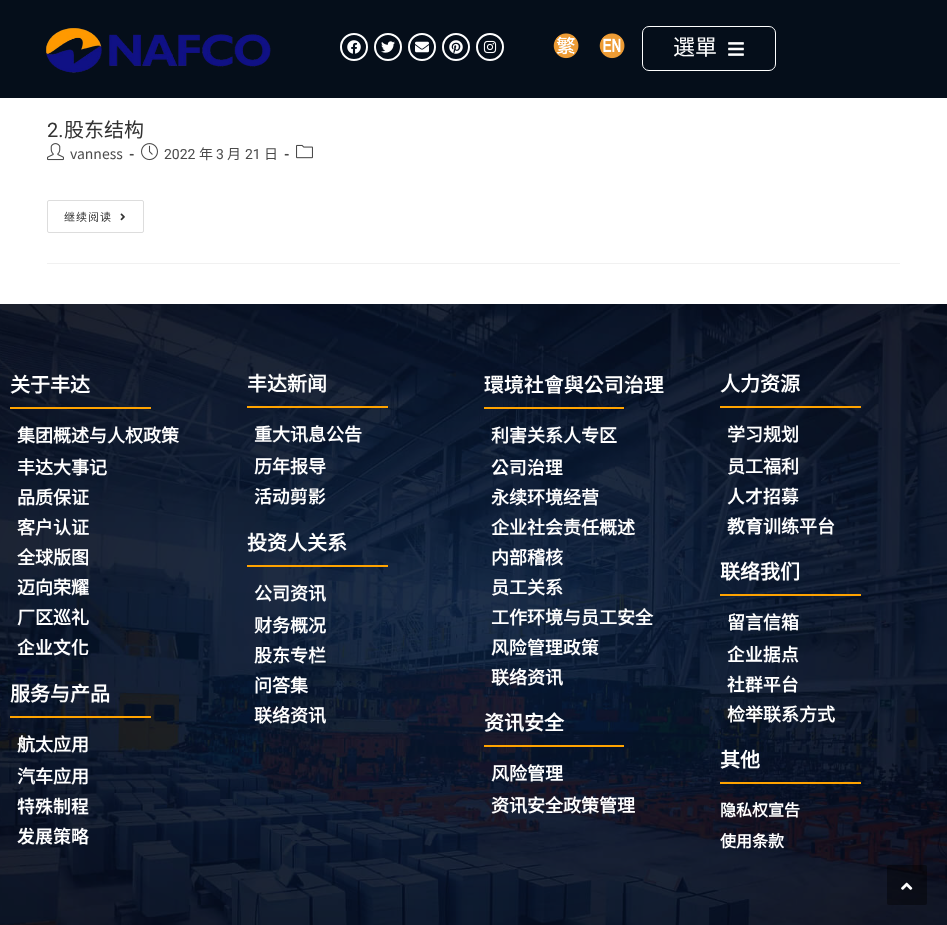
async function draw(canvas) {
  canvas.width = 947
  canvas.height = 925
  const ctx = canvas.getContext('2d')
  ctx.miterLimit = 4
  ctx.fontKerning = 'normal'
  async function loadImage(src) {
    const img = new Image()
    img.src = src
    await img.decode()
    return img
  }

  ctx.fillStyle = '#fff'
  ctx.fillRect(0, 0, 947, 925)
  ctx.fillStyle = '#050e1a'
  ctx.fillRect(0, 0, 947, 98)
  ctx.drawImage(await loadImage('image0.png'), 46, 28, 225, 45)
  ctx.beginPath()
  ctx.arc(354, 47, 13, 0, 2 * Math.PI)
  ctx.strokeStyle = '#fff'
  ctx.lineWidth = 2
  ctx.stroke()
  ctx.drawImage(await loadImage('image1.png'), 347, 40, 14, 14)
  ctx.beginPath()
  ctx.arc(388, 47, 13, 0, 2 * Math.PI)
  ctx.stroke()
  ctx.drawImage(await loadImage('image2.png'), 381, 41, 14, 12)
  ctx.beginPath()
  ctx.arc(422, 47, 13, 0, 2 * Math.PI)
  ctx.stroke()
  ctx.drawImage(await loadImage('image3.png'), 415, 41, 14, 12)
  ctx.beginPath()
  ctx.arc(456, 47, 13, 0, 2 * Math.PI)
  ctx.stroke()
  ctx.drawImage(await loadImage('image4.png'), 449, 40, 14, 14)
  ctx.beginPath()
  ctx.arc(490, 47, 13, 0, 2 * Math.PI)
  ctx.stroke()
  ctx.drawImage(await loadImage('image5.png'), 483, 40, 14, 14)
  ctx.drawImage(await loadImage('image6.png'), 553, 33, 26, 26)
  ctx.drawImage(await loadImage('image7.png'), 599, 33, 26, 26)
  ctx.beginPath()
  ctx.roundRect(642.5, 26.5, 133, 44, 6.5)
  ctx.lineWidth = 1
  ctx.stroke()
  ctx.font = '22px Noto Sans CJK SC'
  ctx.fillStyle = '#fff'
  ctx.fillText('選單', 673, 55)
  ctx.drawImage(await loadImage('image8.png'), 728, 42, 16, 14)
  ctx.fillStyle = '#f1f1f1'
  ctx.fillRect(47, 263, 853, 1)
  ctx.font = '20px Roboto'
  ctx.fillStyle = '#333'
  ctx.fillText('2.', 47, 137)
  ctx.font = '20px Noto Sans CJK SC'
  ctx.fillText('股东结构', 64, 137)
  ctx.drawImage(await loadImage('image9.png'), 47, 143, 17, 18)
  ctx.font = '14px Noto Sans TC'
  ctx.fillStyle = '#4a4a4a'
  ctx.fillText('vanness', 70, 159)
  ctx.font = 'bold 14px Roboto'
  ctx.fillText('-', 129, 159)
  ctx.drawImage(await loadImage('image10.png'), 141, 143, 17, 18)
  ctx.font = '14px Roboto'
  ctx.fillText('2022', 164, 159)
  ctx.font = '14px Noto Sans CJK SC'
  ctx.fillText('年', 199, 159)
  ctx.font = '14px Roboto'
  ctx.fillText('3', 216, 159)
  ctx.font = '14px Noto Sans CJK SC'
  ctx.fillText('月', 227, 159)
  ctx.font = '14px Roboto'
  ctx.fillText('21', 245, 159)
  ctx.font = '14px Noto Sans CJK SC'
  ctx.fillText('日', 264, 159)
  ctx.font = 'bold 14px Roboto'
  ctx.fillText('-', 284, 159)
  ctx.drawImage(await loadImage('image11.png'), 296, 144, 17, 15)
  ctx.beginPath()
  ctx.roundRect(47.5, 200.5, 96, 32, 1.5)
  ctx.strokeStyle = '#ddd'
  ctx.stroke()
  ctx.letterSpacing = '1px'
  ctx.font = '11px Noto Sans CJK SC'
  ctx.fillStyle = '#333'
  ctx.fillText('继续阅读', 64, 221)
  ctx.drawImage(await loadImage('image12.png'), 120, 213, 5, 8)
  ctx.drawImage(await loadImage('image13.png'), 0, 304, 947, 621)
  ctx.letterSpacing = '0px'
  ctx.font = 'bold 20px Noto Sans CJK SC'
  ctx.fillStyle = '#fff'
  ctx.fillText('关于丰达', 10, 392)
  ctx.fillStyle = '#ffa300'
  ctx.fillRect(10, 407, 141, 2)
  ctx.font = 'bold 18px Noto Sans CJK SC'
  ctx.fillStyle = '#fff'
  ctx.fillText('集团概述与人权政策', 17, 442)
  ctx.fillText('丰达大事记', 17, 474)
  ctx.fillText('品质保证', 17, 504)
  ctx.fillText('客户认证', 17, 534)
  ctx.fillText('全球版图', 17, 564)
  ctx.fillText('迈向荣耀', 17, 594)
  ctx.fillText('厂区巡礼', 17, 624)
  ctx.font = '600 18px Noto Sans TC'
  ctx.fillText('企业文化', 17, 654)
  ctx.font = 'bold 20px Noto Sans CJK SC'
  ctx.fillText('服务与产品', 10, 701)
  ctx.fillStyle = '#ffa300'
  ctx.fillRect(10, 716, 141, 2)
  ctx.font = 'bold 18px Noto Sans CJK SC'
  ctx.fillStyle = '#fff'
  ctx.fillText('航太应用', 17, 751)
  ctx.fillText('汽车应用', 17, 783)
  ctx.font = '600 18px Noto Sans TC'
  ctx.fillText('特殊制程', 17, 813)
  ctx.fillText('发展策略', 17, 843)
  ctx.font = 'bold 20px Noto Sans CJK SC'
  ctx.fillText('丰达新闻', 247, 391)
  ctx.fillStyle = '#ffa300'
  ctx.fillRect(247, 406, 141, 2)
  ctx.font = 'bold 18px Noto Sans CJK SC'
  ctx.fillStyle = '#fff'
  ctx.fillText('重大讯息公告', 254, 441)
  ctx.fillText('历年报导', 254, 473)
  ctx.font = '600 18px Noto Sans TC'
  ctx.fillText('活动剪影', 254, 503)
  ctx.font = 'bold 20px Noto Sans CJK SC'
  ctx.fillText('投资人关系', 247, 550)
  ctx.fillStyle = '#ffa300'
  ctx.fillRect(247, 565, 141, 2)
  ctx.font = 'bold 18px Noto Sans CJK SC'
  ctx.fillStyle = '#fff'
  ctx.fillText('公司资讯', 254, 600)
  ctx.fillText('财务概况', 254, 632)
  ctx.fillText('股东专栏', 254, 662)
  ctx.fillText('问答集', 254, 692)
  ctx.fillText('联络资讯', 254, 722)
  ctx.font = '600 20px Noto Sans TC'
  ctx.fillText('環境社會與公司治理', 484, 392)
  ctx.fillStyle = '#ffa300'
  ctx.fillRect(484, 407, 140, 2)
  ctx.font = 'bold 18px Noto Sans CJK SC'
  ctx.fillStyle = '#fff'
  ctx.fillText('利害关系人专区', 491, 442)
  ctx.font = '600 18px Noto Sans TC'
  ctx.fillText('公司治理', 491, 474)
  ctx.font = 'bold 18px Noto Sans CJK SC'
  ctx.fillText('永续环境经营', 491, 504)
  ctx.fillText('企业社会责任概述', 491, 534)
  ctx.fillText('内部稽核', 491, 564)
  ctx.fillText('员工关系', 491, 594)
  ctx.fillText('工作环境与员工安全', 491, 624)
  ctx.font = '600 18px Noto Sans TC'
  ctx.fillText('风险管理政策', 491, 654)
  ctx.font = 'bold 18px Noto Sans CJK SC'
  ctx.fillText('联络资讯', 491, 684)
  ctx.font = 'bold 20px Noto Sans CJK SC'
  ctx.fillText('资讯安全', 484, 730)
  ctx.fillStyle = '#ffa300'
  ctx.fillRect(484, 745, 140, 2)
  ctx.font = 'bold 18px Noto Sans CJK SC'
  ctx.fillStyle = '#fff'
  ctx.fillText('风险管理', 491, 780)
  ctx.fillText('资讯安全政策管理', 491, 812)
  ctx.font = 'bold 20px Noto Sans CJK SC'
  ctx.fillText('人力资源', 720, 391)
  ctx.fillStyle = '#ffa300'
  ctx.fillRect(720, 406, 141, 2)
  ctx.font = 'bold 18px Noto Sans CJK SC'
  ctx.fillStyle = '#fff'
  ctx.fillText('学习规划', 727, 441)
  ctx.fillText('员工福利', 727, 473)
  ctx.font = '600 18px Noto Sans TC'
  ctx.fillText('人才招募', 727, 503)
  ctx.font = 'bold 18px Noto Sans CJK SC'
  ctx.fillText('教育训练平台', 727, 533)
  ctx.font = 'bold 20px Noto Sans CJK SC'
  ctx.fillText('联络我们', 720, 579)
  ctx.fillStyle = '#ffa300'
  ctx.fillRect(720, 594, 141, 2)
  ctx.font = 'bold 18px Noto Sans CJK SC'
  ctx.fillStyle = '#fff'
  ctx.fillText('留言信箱', 727, 629)
  ctx.font = '600 18px Noto Sans TC'
  ctx.fillText('企业据点', 727, 661)
  ctx.fillText('社群平台', 727, 691)
  ctx.font = 'bold 18px Noto Sans CJK SC'
  ctx.fillText('检举联系方式', 727, 721)
  ctx.font = 'bold 20px Noto Sans CJK SC'
  ctx.fillText('其他', 720, 767)
  ctx.fillStyle = '#ffa300'
  ctx.fillRect(720, 782, 141, 2)
  ctx.font = 'bold 16px Noto Sans CJK SC'
  ctx.fillStyle = '#fff'
  ctx.fillText('隐私权宣告', 720, 816)
  ctx.fillText('使用条款', 720, 847)
  ctx.fillStyle = '#00000066'
  ctx.beginPath()
  ctx.roundRect(887, 865, 40, 40, 2)
  ctx.fill()
  ctx.drawImage(await loadImage('image14.png'), 901, 882, 12, 8)
}

draw(document.querySelector('canvas'))
